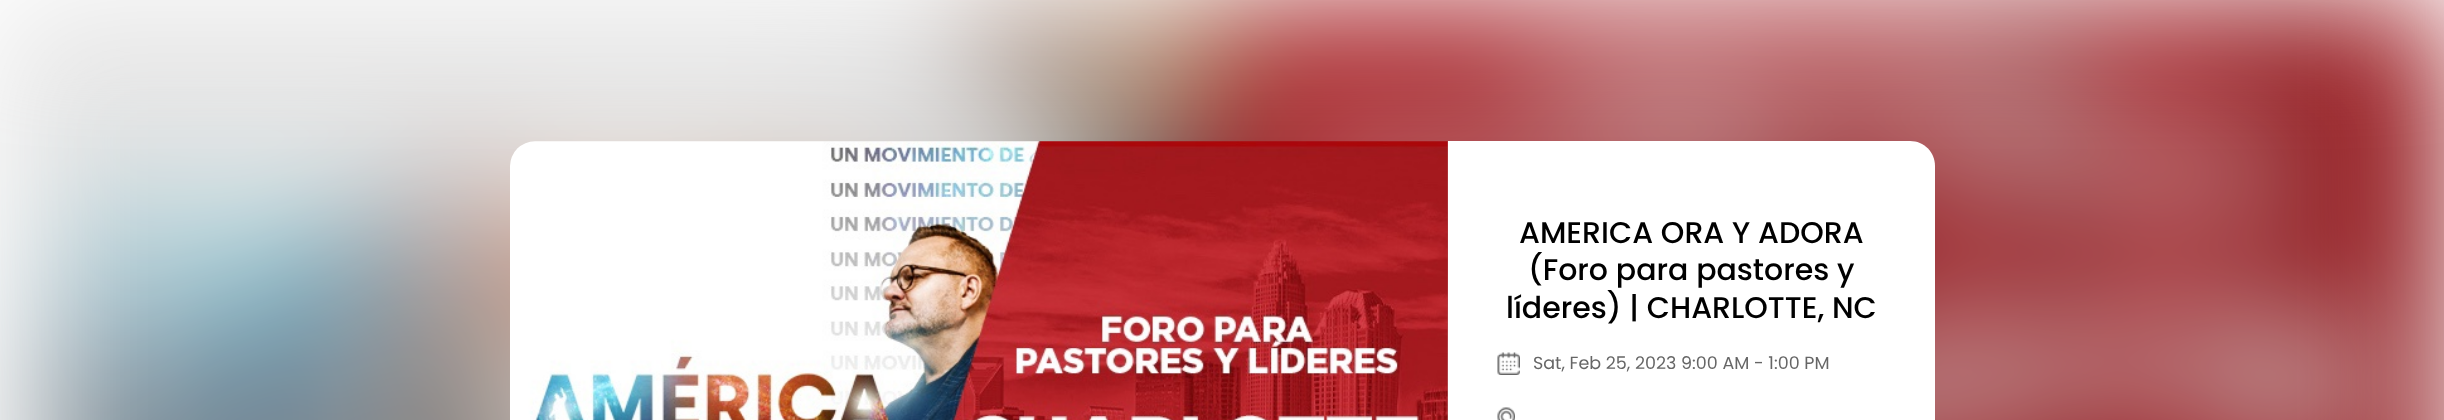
async function draw(canvas) {
  canvas.width = 2444
  canvas.height = 420
  const ctx = canvas.getContext('2d')
  ctx.miterLimit = 4
  ctx.fontKerning = 'normal'
  async function loadImage(src) {
    const img = new Image()
    img.src = src
    await img.decode()
    return img
  }

  ctx.fillStyle = '#fff'
  ctx.fillRect(0, 0, 2444, 420)
  ctx.drawImage(await loadImage('image0.png'), 0, 0, 2444, 420)
  ctx.drawImage(await loadImage('image1.png'), 510, 141, 938, 279)
  ctx.beginPath()
  ctx.moveTo(1448, 141)
  ctx.lineTo(1910, 141)
  ctx.bezierCurveTo(1924, 141, 1935, 152, 1935, 166)
  ctx.lineTo(1935, 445)
  ctx.lineTo(1448, 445)
  ctx.closePath()
  ctx.fill()
  ctx.font = '500 30px Poppins'
  ctx.fillStyle = '#000'
  ctx.fillText('AMERICA ORA Y ADORA', 1519, 243)
  ctx.fillText('(Foro para pastores y', 1528, 280)
  ctx.fillText('líderes) | CHARLOTTE, NC', 1506, 318)
  ctx.drawImage(await loadImage('image2.png'), 1497, 352, 23, 23)
  ctx.font = '17.5px Poppins'
  ctx.fillStyle = '#666'
  ctx.fillText('Sat, Feb 25, 2023 9:00 AM - 1:00 PM', 1533, 369)
  ctx.drawImage(await loadImage('image3.png'), 1497, 407, 18, 13)
}

draw(document.querySelector('canvas'))
